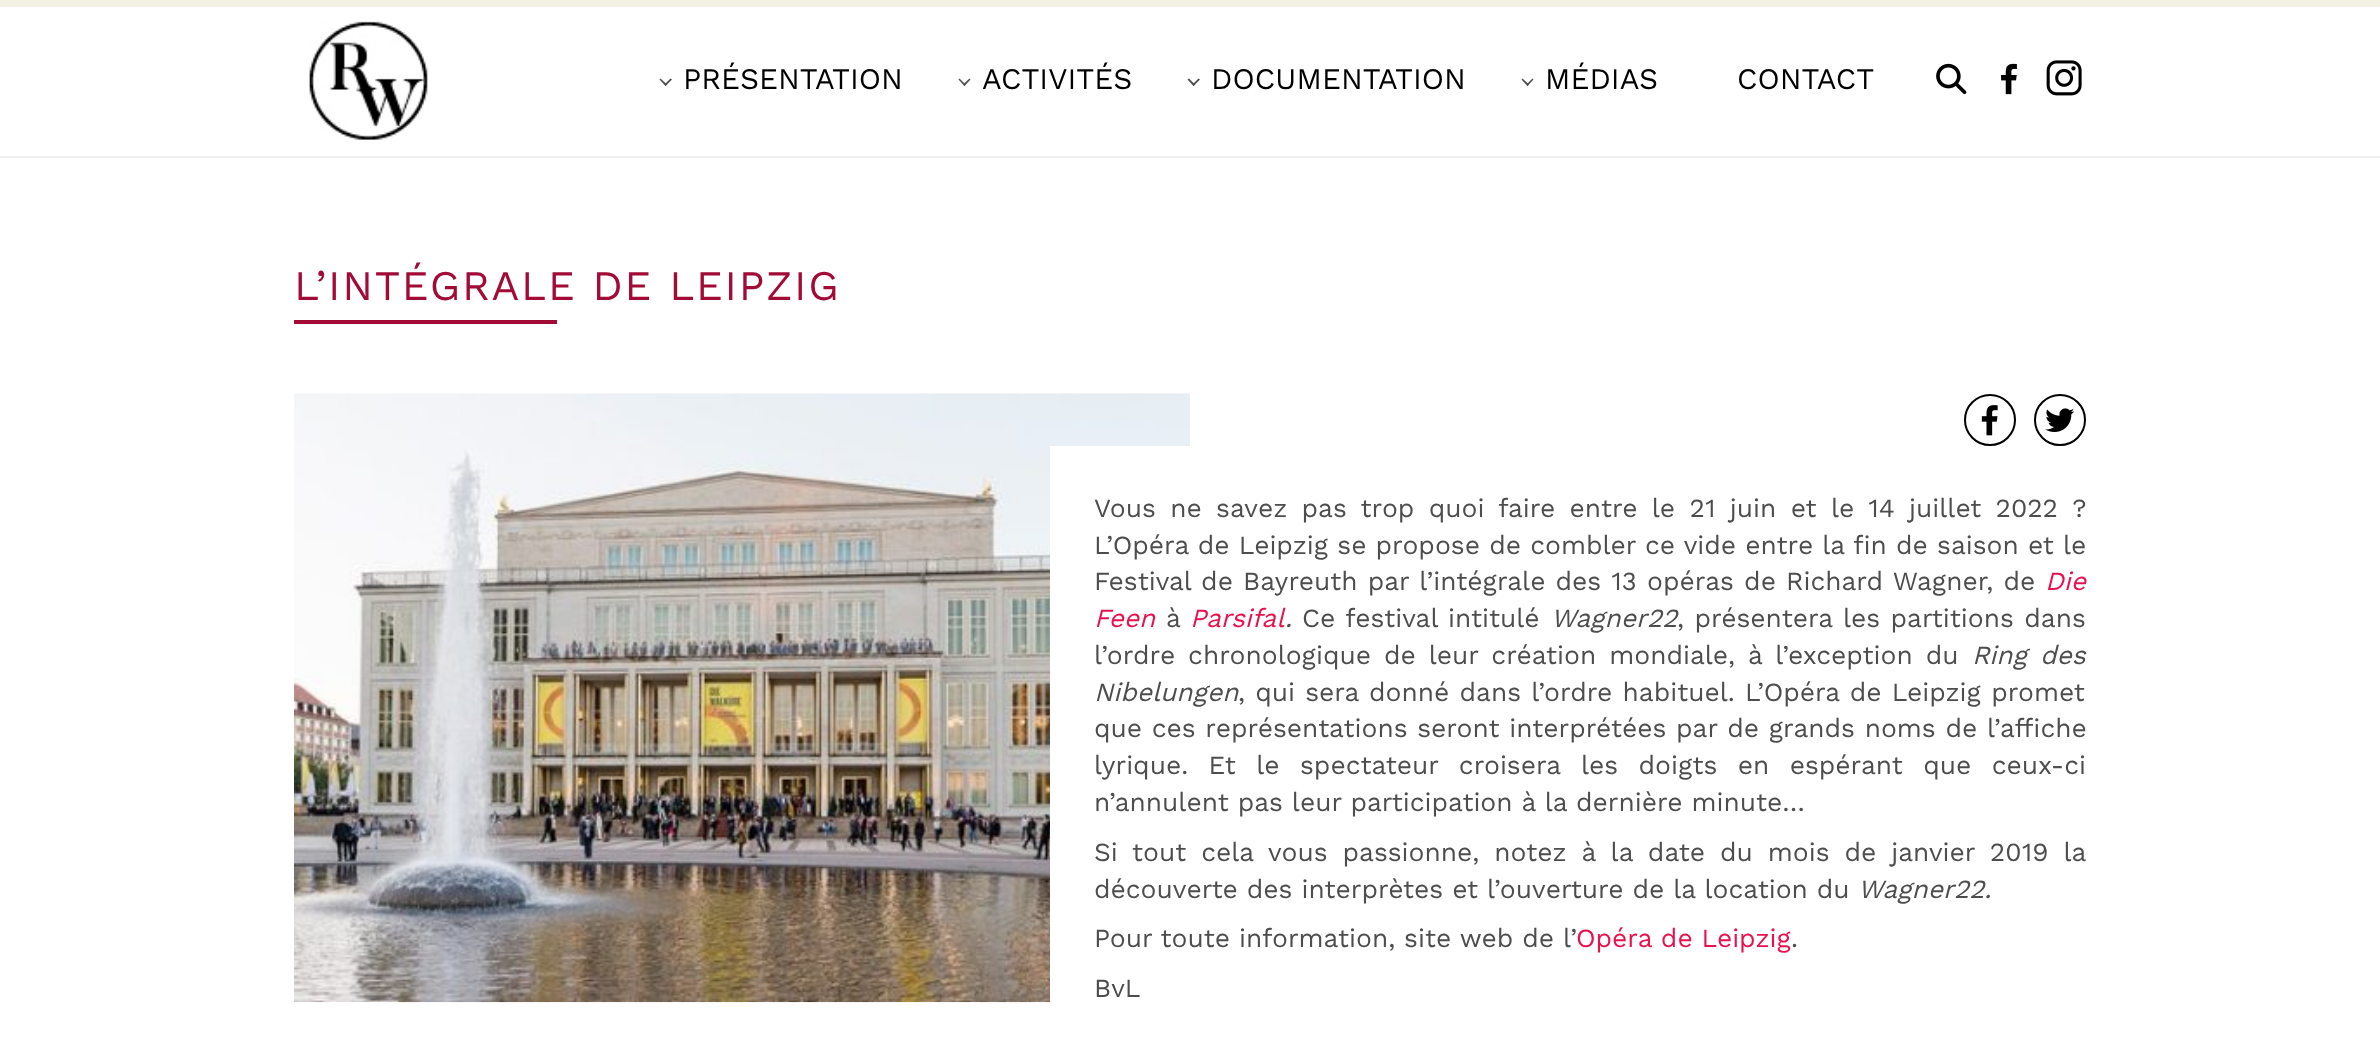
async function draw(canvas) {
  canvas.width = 2380
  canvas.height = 1047
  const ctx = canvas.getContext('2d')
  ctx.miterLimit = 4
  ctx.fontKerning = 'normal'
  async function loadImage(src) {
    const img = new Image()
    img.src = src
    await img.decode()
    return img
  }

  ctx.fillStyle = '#fff'
  ctx.fillRect(0, 0, 2380, 1047)
  ctx.fillStyle = '#f3f1e4'
  ctx.fillRect(0, 0, 2380, 7)
  ctx.fillStyle = '#f0f0f0'
  ctx.fillRect(0, 156, 2380, 2)
  ctx.drawImage(await loadImage('image0.png'), 309, 21, 119, 119)
  ctx.fillStyle = '#4d4d4d'
  ctx.beginPath()
  ctx.moveTo(664.5, 84.5)
  ctx.lineTo(670.5, 78.5)
  ctx.lineTo(672, 79.5)
  ctx.lineTo(665.5, 86)
  ctx.closePath()
  ctx.fill()
  ctx.beginPath()
  ctx.moveTo(659.5, 79.5)
  ctx.lineTo(660.5, 78.5)
  ctx.lineTo(667, 84.5)
  ctx.lineTo(665.5, 86)
  ctx.closePath()
  ctx.fill()
  ctx.font = '29.75px Work Sans'
  ctx.fillStyle = '#000'
  ctx.fillText('PRÉSENTATION', 683, 89)
  ctx.fillStyle = '#4d4d4d'
  ctx.beginPath()
  ctx.moveTo(963, 84.5)
  ctx.lineTo(969.5, 78.5)
  ctx.lineTo(970.5, 79.5)
  ctx.lineTo(964.5, 86)
  ctx.closePath()
  ctx.fill()
  ctx.beginPath()
  ctx.moveTo(958.5, 79.5)
  ctx.lineTo(959.5, 78.5)
  ctx.lineTo(965.5, 84.5)
  ctx.lineTo(964.5, 86)
  ctx.closePath()
  ctx.fill()
  ctx.fillStyle = '#000'
  ctx.fillText('ACTIVITÉS', 982, 89)
  ctx.fillStyle = '#4d4d4d'
  ctx.beginPath()
  ctx.moveTo(1192.5, 84.5)
  ctx.lineTo(1198.5, 78.5)
  ctx.lineTo(1200, 79.5)
  ctx.lineTo(1193.5, 86)
  ctx.closePath()
  ctx.fill()
  ctx.beginPath()
  ctx.moveTo(1187.5, 79.5)
  ctx.lineTo(1189, 78.5)
  ctx.lineTo(1195, 84.5)
  ctx.lineTo(1193.5, 86)
  ctx.closePath()
  ctx.fill()
  ctx.fillStyle = '#000'
  ctx.fillText('DOCUMENTATION', 1211, 89)
  ctx.fillStyle = '#4d4d4d'
  ctx.beginPath()
  ctx.moveTo(1526.5, 84.5)
  ctx.lineTo(1532.5, 78.5)
  ctx.lineTo(1533.5, 79.5)
  ctx.lineTo(1527.5, 86)
  ctx.closePath()
  ctx.fill()
  ctx.beginPath()
  ctx.moveTo(1521.5, 79.5)
  ctx.lineTo(1522.5, 78.5)
  ctx.lineTo(1529, 84.5)
  ctx.lineTo(1527.5, 86)
  ctx.closePath()
  ctx.fill()
  ctx.fillStyle = '#000'
  ctx.fillText('MÉDIAS', 1545, 89)
  ctx.fillText('CONTACT', 1737, 89)
  ctx.drawImage(await loadImage('image1.png'), 1936, 63, 31, 32)
  ctx.drawImage(await loadImage('image2.png'), 2001, 63, 16, 32)
  ctx.drawImage(await loadImage('image3.png'), 2046, 60, 36, 36)
  ctx.letterSpacing = '1.75px'
  ctx.font = '42px Work Sans'
  ctx.fillStyle = '#a30b37'
  ctx.fillText('L’INTÉGRALE DE LEIPZIG', 294, 300)
  ctx.fillRect(294, 320, 263, 4)
  ctx.drawImage(await loadImage('image4.png'), 294, 393, 896, 610)
  ctx.beginPath()
  ctx.arc(1990, 420, 25, 0, 2 * Math.PI)
  ctx.strokeStyle = '#000'
  ctx.lineWidth = 2
  ctx.stroke()
  ctx.drawImage(await loadImage('image5.png'), 1981, 405, 17, 31)
  ctx.beginPath()
  ctx.arc(2060, 420, 25, 0, 2 * Math.PI)
  ctx.stroke()
  ctx.drawImage(await loadImage('image6.png'), 2045, 408, 30, 24)
  ctx.fillStyle = '#fff'
  ctx.fillRect(1050, 446, 140, 557)
  ctx.letterSpacing = '0px'
  ctx.wordSpacing = '5.4px'
  ctx.font = '26.25px Work Sans'
  ctx.fillStyle = '#4d4d4d'
  ctx.fillText('Vous ne savez pas trop quoi faire entre le 21 juin et le 14 juillet 2022 ?', 1094, 517)
  ctx.wordSpacing = '0.25px'
  ctx.fillText('L’Opéra de Leipzig se propose de combler ce vide entre la fin de saison et le', 1094, 554)
  ctx.wordSpacing = '1.25px'
  ctx.fillText('Festival de Bayreuth par l’intégrale des 13 opéras de Richard Wagner, de', 1094, 590)
  ctx.wordSpacing = '0px'
  ctx.font = 'italic 26.25px Work Sans'
  ctx.fillStyle = '#e8114e'
  ctx.fillText('Die', 2045, 590)
  ctx.fillText('Feen', 1094, 627)
  ctx.font = '26.25px Work Sans'
  ctx.fillStyle = '#4d4d4d'
  ctx.fillText('à', 1166, 627)
  ctx.font = 'italic 26.25px Work Sans'
  ctx.fillStyle = '#e8114e'
  ctx.fillText('Parsifal', 1190, 627)
  ctx.fillStyle = '#4d4d4d'
  ctx.fillText('.', 1285, 627)
  ctx.wordSpacing = '1.5px'
  ctx.font = '26.25px Work Sans'
  ctx.fillText('Ce festival intitulé', 1302, 627)
  ctx.wordSpacing = '0px'
  ctx.font = 'italic 26.25px Work Sans'
  ctx.fillText('Wagner22', 1551, 627)
  ctx.wordSpacing = '1.5px'
  ctx.font = '26.25px Work Sans'
  ctx.fillText(', présentera les partitions dans', 1677, 627)
  ctx.wordSpacing = '4px'
  ctx.fillText('l’ordre chronologique de leur création mondiale, à l’exception du', 1094, 664)
  ctx.font = 'italic 26.25px Work Sans'
  ctx.fillText('Ring des', 1972, 664)
  ctx.wordSpacing = '0px'
  ctx.fillText('Nibelungen', 1094, 701)
  ctx.wordSpacing = '1.25px'
  ctx.font = '26.25px Work Sans'
  ctx.fillText(', qui sera donné dans l’ordre habituel. L’Opéra de Leipzig promet', 1238, 701)
  ctx.wordSpacing = '0.75px'
  ctx.fillText('que ces représentations seront interprétées par de grands noms de l’affiche', 1094, 737)
  ctx.wordSpacing = '11.5px'
  ctx.fillText('lyrique. Et le spectateur croisera les doigts en espérant que ceux-ci', 1094, 774)
  ctx.wordSpacing = '0px'
  ctx.fillText('n’annulent pas leur participation à la dernière minute…', 1094, 811)
  ctx.wordSpacing = '6px'
  ctx.fillText('Si tout cela vous passionne, notez à la date du mois de janvier 2019 la', 1094, 861)
  ctx.wordSpacing = '0px'
  ctx.fillText('découverte des interprètes et l’ouverture de la location du', 1094, 898)
  ctx.font = 'italic 26.25px Work Sans'
  ctx.fillText('Wagner22.', 1858, 898)
  ctx.font = '26.25px Work Sans'
  ctx.fillText('Pour toute information, site web de l’', 1094, 947)
  ctx.fillStyle = '#e8114e'
  ctx.fillText('Opéra de Leipzig', 1576, 947)
  ctx.fillStyle = '#4d4d4d'
  ctx.fillText('.', 1791, 947)
  ctx.fillText('BvL', 1094, 997)
}

draw(document.querySelector('canvas'))
